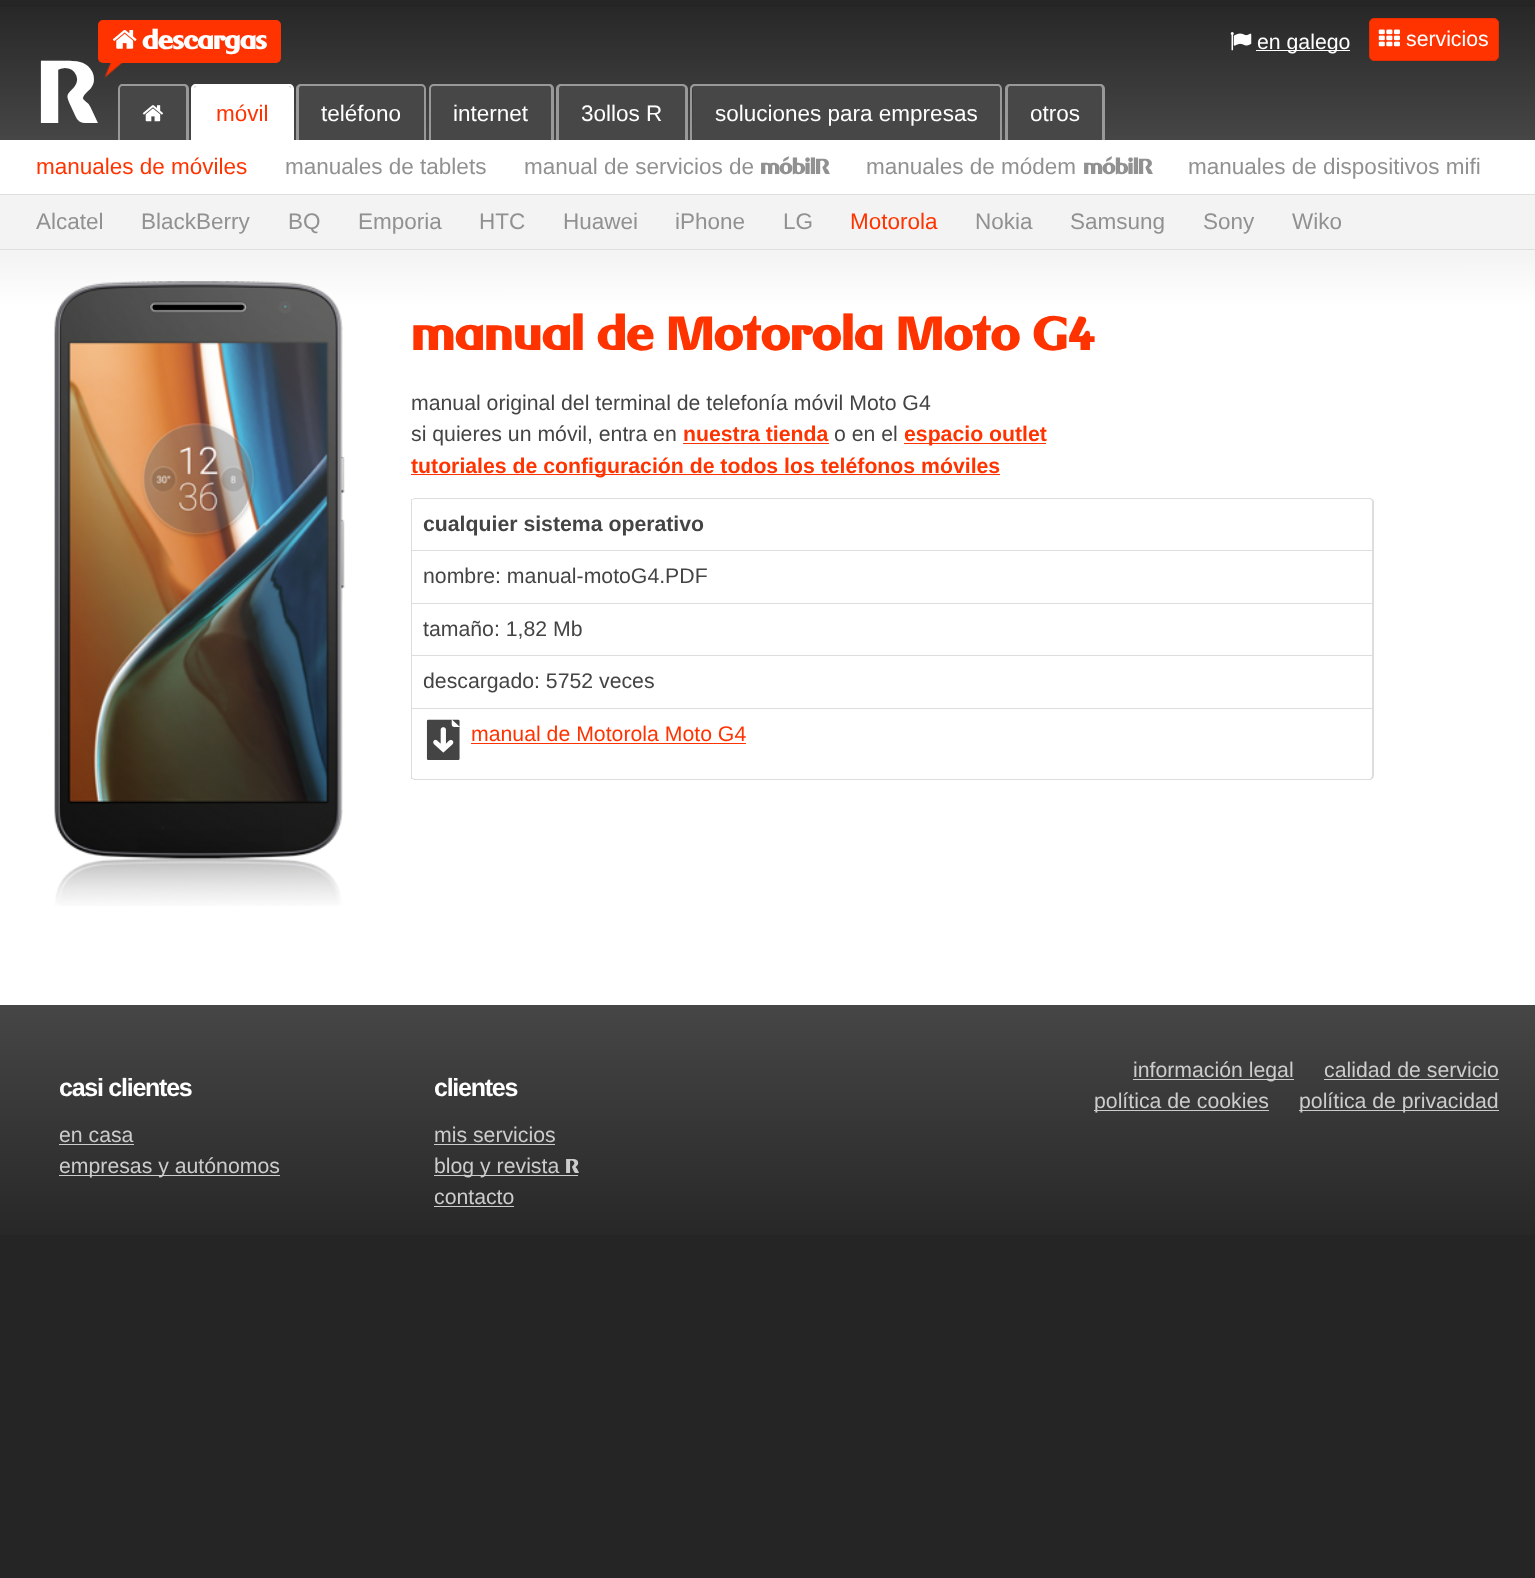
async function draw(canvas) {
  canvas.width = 1535
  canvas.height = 1578
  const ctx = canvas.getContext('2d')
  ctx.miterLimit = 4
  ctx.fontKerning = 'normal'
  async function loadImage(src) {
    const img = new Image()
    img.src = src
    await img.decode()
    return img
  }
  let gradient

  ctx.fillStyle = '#252525'
  ctx.fillRect(0, 0, 1535, 1578)
  gradient = ctx.createLinearGradient(767, 0, 768, 1279)
  gradient.addColorStop(0.2, '#f4f4f4')
  gradient.addColorStop(0.24, '#fff')
  ctx.fillStyle = gradient
  ctx.fillRect(0, 250, 1535, 755)
  gradient = ctx.createLinearGradient(768, 0, 768, 250)
  gradient.addColorStop(0, '#262626')
  gradient.addColorStop(0.56, '#464646')
  ctx.fillStyle = gradient
  ctx.fillRect(0, 7, 1535, 133)
  ctx.fillStyle = '#f30'
  ctx.beginPath()
  ctx.roundRect(98, 20, 183, 43, 5)
  ctx.fill()
  ctx.drawImage(await loadImage('image0.png'), 112, 30, 25, 19)
  ctx.letterSpacing = '-1.25px'
  ctx.font = 'bold 26.25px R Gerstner'
  ctx.fillStyle = '#fff'
  ctx.fillText('descargas', 142, 49)
  ctx.drawImage(await loadImage('image1.png'), 104, 63, 19, 15)
  ctx.font = 'bold 88px R Gerstner'
  ctx.fillText('R', 36, 123)
  ctx.fillStyle = '#474747'
  ctx.beginPath()
  ctx.roundRect(120, 86, 66, 54, [2.5, 2.5, 0, 0])
  ctx.fill()
  ctx.save()
  ctx.beginPath()
  ctx.rect(36, 84, 1463, 56)
  ctx.clip()
  ctx.fillStyle = '#999'
  ctx.beginPath()
  ctx.moveTo(122, 84)
  ctx.lineTo(184, 84)
  ctx.bezierCurveTo(187, 84, 189, 86, 189, 89)
  ctx.lineTo(189, 142)
  ctx.lineTo(118, 142)
  ctx.lineTo(118, 89)
  ctx.bezierCurveTo(118, 86, 120, 84, 122, 84)
  ctx.closePath()
  ctx.moveTo(122, 86)
  ctx.lineTo(184, 86)
  ctx.bezierCurveTo(185, 86, 186, 87, 186, 89)
  ctx.lineTo(186, 142)
  ctx.lineTo(120, 142)
  ctx.lineTo(120, 89)
  ctx.bezierCurveTo(120, 87, 121, 86, 122, 86)
  ctx.closePath()
  ctx.fill('evenodd')
  ctx.restore()
  ctx.drawImage(await loadImage('image2.png'), 142, 105, 21, 17)
  ctx.fillStyle = '#fff'
  ctx.beginPath()
  ctx.roundRect(194, 86, 97, 54, [2.5, 2.5, 0, 0])
  ctx.fill()
  ctx.save()
  ctx.beginPath()
  ctx.rect(36, 84, 1463, 56)
  ctx.clip()
  ctx.beginPath()
  ctx.moveTo(196, 84)
  ctx.lineTo(289, 84)
  ctx.bezierCurveTo(292, 84, 294, 86, 294, 89)
  ctx.lineTo(294, 142)
  ctx.lineTo(191, 142)
  ctx.lineTo(191, 89)
  ctx.bezierCurveTo(191, 86, 193, 84, 196, 84)
  ctx.closePath()
  ctx.moveTo(196, 86)
  ctx.lineTo(289, 86)
  ctx.bezierCurveTo(290, 86, 291, 87, 291, 89)
  ctx.lineTo(291, 142)
  ctx.lineTo(194, 142)
  ctx.lineTo(194, 89)
  ctx.bezierCurveTo(194, 87, 195, 86, 196, 86)
  ctx.closePath()
  ctx.fill('evenodd')
  ctx.restore()
  ctx.letterSpacing = '0px'
  ctx.font = '22.5px Liberation Sans'
  ctx.fillStyle = '#f30'
  ctx.fillText('móvil', 216, 121)
  ctx.fillStyle = '#474747'
  ctx.beginPath()
  ctx.roundRect(299, 86, 125, 54, [2.5, 2.5, 0, 0])
  ctx.fill()
  ctx.save()
  ctx.beginPath()
  ctx.rect(36, 84, 1463, 56)
  ctx.clip()
  ctx.fillStyle = '#999'
  ctx.beginPath()
  ctx.moveTo(301, 84)
  ctx.lineTo(421, 84)
  ctx.bezierCurveTo(424, 84, 426, 86, 426, 89)
  ctx.lineTo(426, 142)
  ctx.lineTo(296, 142)
  ctx.lineTo(296, 89)
  ctx.bezierCurveTo(296, 86, 298, 84, 301, 84)
  ctx.closePath()
  ctx.moveTo(301, 86)
  ctx.lineTo(421, 86)
  ctx.bezierCurveTo(423, 86, 424, 87, 424, 89)
  ctx.lineTo(424, 142)
  ctx.lineTo(299, 142)
  ctx.lineTo(299, 89)
  ctx.bezierCurveTo(299, 87, 300, 86, 301, 86)
  ctx.closePath()
  ctx.fill('evenodd')
  ctx.restore()
  ctx.fillStyle = '#fff'
  ctx.fillText('teléfono', 321, 121)
  ctx.fillStyle = '#474747'
  ctx.beginPath()
  ctx.roundRect(431, 86, 120, 54, [2.5, 2.5, 0, 0])
  ctx.fill()
  ctx.save()
  ctx.beginPath()
  ctx.rect(36, 84, 1463, 56)
  ctx.clip()
  ctx.fillStyle = '#999'
  ctx.beginPath()
  ctx.moveTo(434, 84)
  ctx.lineTo(549, 84)
  ctx.bezierCurveTo(552, 84, 554, 86, 554, 89)
  ctx.lineTo(554, 142)
  ctx.lineTo(429, 142)
  ctx.lineTo(429, 89)
  ctx.bezierCurveTo(429, 86, 431, 84, 434, 84)
  ctx.closePath()
  ctx.moveTo(434, 86)
  ctx.lineTo(549, 86)
  ctx.bezierCurveTo(550, 86, 551, 87, 551, 89)
  ctx.lineTo(551, 142)
  ctx.lineTo(431, 142)
  ctx.lineTo(431, 89)
  ctx.bezierCurveTo(431, 87, 432, 86, 434, 86)
  ctx.closePath()
  ctx.fill('evenodd')
  ctx.restore()
  ctx.fillStyle = '#fff'
  ctx.fillText('internet', 453, 121)
  ctx.fillStyle = '#474747'
  ctx.beginPath()
  ctx.roundRect(559, 86, 126, 54, [2.5, 2.5, 0, 0])
  ctx.fill()
  ctx.save()
  ctx.beginPath()
  ctx.rect(36, 84, 1463, 56)
  ctx.clip()
  ctx.fillStyle = '#999'
  ctx.beginPath()
  ctx.moveTo(561, 84)
  ctx.lineTo(682, 84)
  ctx.bezierCurveTo(685, 84, 688, 86, 688, 89)
  ctx.lineTo(688, 142)
  ctx.lineTo(556, 142)
  ctx.lineTo(556, 89)
  ctx.bezierCurveTo(556, 86, 558, 84, 561, 84)
  ctx.closePath()
  ctx.moveTo(561, 86)
  ctx.lineTo(682, 86)
  ctx.bezierCurveTo(684, 86, 685, 87, 685, 89)
  ctx.lineTo(685, 142)
  ctx.lineTo(559, 142)
  ctx.lineTo(559, 89)
  ctx.bezierCurveTo(559, 87, 560, 86, 561, 86)
  ctx.closePath()
  ctx.fill('evenodd')
  ctx.restore()
  ctx.fillStyle = '#fff'
  ctx.fillText('3ollos R', 581, 121)
  ctx.fillStyle = '#474747'
  ctx.beginPath()
  ctx.roundRect(693, 86, 307, 54, [2.5, 2.5, 0, 0])
  ctx.fill()
  ctx.save()
  ctx.beginPath()
  ctx.rect(36, 84, 1463, 56)
  ctx.clip()
  ctx.fillStyle = '#999'
  ctx.beginPath()
  ctx.moveTo(695, 84)
  ctx.lineTo(998, 84)
  ctx.bezierCurveTo(1000, 84, 1002, 86, 1002, 89)
  ctx.lineTo(1002, 142)
  ctx.lineTo(690, 142)
  ctx.lineTo(690, 89)
  ctx.bezierCurveTo(690, 86, 692, 84, 695, 84)
  ctx.closePath()
  ctx.moveTo(695, 86)
  ctx.lineTo(998, 86)
  ctx.bezierCurveTo(999, 86, 1000, 87, 1000, 89)
  ctx.lineTo(1000, 142)
  ctx.lineTo(692, 142)
  ctx.lineTo(692, 89)
  ctx.bezierCurveTo(692, 87, 694, 86, 695, 86)
  ctx.closePath()
  ctx.fill('evenodd')
  ctx.restore()
  ctx.fillStyle = '#fff'
  ctx.fillText('soluciones para empresas', 715, 121)
  ctx.fillStyle = '#474747'
  ctx.beginPath()
  ctx.roundRect(1008, 86, 95, 54, [2.5, 2.5, 0, 0])
  ctx.fill()
  ctx.save()
  ctx.beginPath()
  ctx.rect(36, 84, 1463, 56)
  ctx.clip()
  ctx.fillStyle = '#999'
  ctx.beginPath()
  ctx.moveTo(1010, 84)
  ctx.lineTo(1100, 84)
  ctx.bezierCurveTo(1103, 84, 1105, 86, 1105, 89)
  ctx.lineTo(1105, 142)
  ctx.lineTo(1005, 142)
  ctx.lineTo(1005, 89)
  ctx.bezierCurveTo(1005, 86, 1007, 84, 1010, 84)
  ctx.closePath()
  ctx.moveTo(1010, 86)
  ctx.lineTo(1100, 86)
  ctx.bezierCurveTo(1101, 86, 1102, 87, 1102, 89)
  ctx.lineTo(1102, 142)
  ctx.lineTo(1008, 142)
  ctx.lineTo(1008, 89)
  ctx.bezierCurveTo(1008, 87, 1009, 86, 1010, 86)
  ctx.closePath()
  ctx.fill('evenodd')
  ctx.restore()
  ctx.fillStyle = '#fff'
  ctx.fillText('otros', 1030, 121)
  ctx.fillRect(0, 140, 1535, 54)
  ctx.fillStyle = '#dfdfdf'
  ctx.fillRect(0, 194, 1535, 1)
  ctx.fillStyle = '#f30'
  ctx.fillText('manuales de móviles', 36, 174)
  ctx.fillStyle = '#919191'
  ctx.fillText('manuales de tablets', 285, 174)
  ctx.fillText('manual de servicios de', 524, 174)
  ctx.letterSpacing = '-1.25px'
  ctx.font = 'bold 21.5px R Gerstner'
  ctx.fillText('móbilR', 760, 174)
  ctx.letterSpacing = '0px'
  ctx.font = '22.5px Liberation Sans'
  ctx.fillText('manuales de módem', 866, 174)
  ctx.letterSpacing = '-1.25px'
  ctx.font = 'bold 21.5px R Gerstner'
  ctx.fillText('móbilR', 1083, 174)
  ctx.letterSpacing = '0px'
  ctx.font = '22.5px Liberation Sans'
  ctx.fillText('manuales de dispositivos mifi', 1188, 174)
  ctx.fillStyle = '#f3f3f3'
  ctx.fillRect(0, 195, 1535, 54)
  ctx.fillStyle = '#dfdfdf'
  ctx.fillRect(0, 249, 1535, 1)
  ctx.fillStyle = '#919191'
  ctx.fillText('Alcatel', 36, 229)
  ctx.fillText('BlackBerry', 141, 229)
  ctx.fillText('BQ', 288, 229)
  ctx.fillText('Emporia', 358, 229)
  ctx.fillText('HTC', 479, 229)
  ctx.fillText('Huawei', 563, 229)
  ctx.fillText('iPhone', 675, 229)
  ctx.fillText('LG', 783, 229)
  ctx.fillStyle = '#f30'
  ctx.fillText('Motorola', 850, 229)
  ctx.fillStyle = '#919191'
  ctx.fillText('Nokia', 975, 229)
  ctx.fillText('Samsung', 1070, 229)
  ctx.fillText('Sony', 1203, 229)
  ctx.fillText('Wiko', 1292, 229)
  ctx.drawImage(await loadImage('image3.png'), 1230, 32, 22, 19)
  ctx.fillStyle = '#fff'
  ctx.fillRect(1256, 50, 94, 1)
  ctx.font = '21.25px Liberation Sans'
  ctx.fillText('en galego', 1257, 49)
  ctx.fillStyle = '#f30'
  ctx.beginPath()
  ctx.roundRect(1369.5, 18.5, 129, 42, 4.5)
  ctx.fill()
  ctx.strokeStyle = '#e62e00'
  ctx.stroke()
  ctx.drawImage(await loadImage('image4.png'), 1378, 29, 22, 18)
  ctx.fillStyle = '#fff'
  ctx.fillText('servicios', 1406, 46)
  ctx.drawImage(await loadImage('image5.png'), 54, 281, 291, 625)
  ctx.letterSpacing = '-1.25px'
  ctx.font = 'bold 47.5px R Gerstner'
  ctx.fillStyle = '#f30'
  ctx.fillText('manual de Motorola Moto G4', 411, 350)
  ctx.letterSpacing = '0px'
  ctx.font = '21.25px Liberation Sans'
  ctx.fillStyle = '#444'
  ctx.fillText('manual original del terminal de telefonía móvil Moto G4', 411, 410)
  ctx.fillText('si quieres un móvil, entra en', 411, 441)
  ctx.font = 'bold 21.25px Liberation Sans'
  ctx.fillStyle = '#f30'
  ctx.fillText('nuestra tienda', 683, 441)
  ctx.fillRect(683, 443, 146, 1)
  ctx.font = '21.25px Liberation Sans'
  ctx.fillStyle = '#444'
  ctx.fillText('o en el', 834, 441)
  ctx.fillStyle = '#f30'
  ctx.fillRect(904, 443, 142, 1)
  ctx.font = 'bold 21.25px Liberation Sans'
  ctx.fillText('espacio outlet', 904, 441)
  ctx.fillRect(411, 474, 589, 1)
  ctx.fillText('tutoriales de configuración de todos los teléfonos móviles', 411, 473)
  ctx.fillStyle = '#ddd'
  ctx.beginPath()
  ctx.moveTo(416, 498)
  ctx.lineTo(1369, 498)
  ctx.bezierCurveTo(1372, 498, 1374, 500, 1374, 502)
  ctx.lineTo(1374, 775)
  ctx.bezierCurveTo(1374, 778, 1372, 780, 1369, 780)
  ctx.lineTo(416, 780)
  ctx.bezierCurveTo(413, 780, 411, 778, 411, 775)
  ctx.lineTo(411, 502)
  ctx.bezierCurveTo(411, 500, 413, 498, 416, 498)
  ctx.closePath()
  ctx.moveTo(416, 499)
  ctx.lineTo(1369, 499)
  ctx.bezierCurveTo(1371, 499, 1372, 500, 1372, 502)
  ctx.lineTo(1372, 775)
  ctx.bezierCurveTo(1372, 777, 1371, 779, 1369, 779)
  ctx.lineTo(416, 779)
  ctx.bezierCurveTo(413, 779, 411, 777, 411, 775)
  ctx.lineTo(411, 502)
  ctx.bezierCurveTo(411, 500, 413, 499, 416, 499)
  ctx.closePath()
  ctx.fill('evenodd')
  ctx.fillRect(411, 499, 1, 51)
  ctx.fillStyle = '#444'
  ctx.fillText('cualquier sistema operativo', 423, 531)
  ctx.fillStyle = '#ddd'
  ctx.fillRect(411, 550, 962, 1)
  ctx.fillRect(411, 550, 1, 53)
  ctx.font = '21.25px Liberation Sans'
  ctx.fillStyle = '#444'
  ctx.fillText('nombre: manual-motoG4.PDF', 423, 583)
  ctx.fillStyle = '#ddd'
  ctx.fillRect(411, 603, 962, 1)
  ctx.fillRect(411, 603, 1, 52)
  ctx.fillStyle = '#444'
  ctx.fillText('tamaño: 1,82 Mb', 423, 636)
  ctx.fillStyle = '#ddd'
  ctx.fillRect(411, 655, 962, 1)
  ctx.fillRect(411, 655, 1, 53)
  ctx.fillStyle = '#444'
  ctx.fillText('descargado: 5752 veces', 423, 688)
  ctx.fillStyle = '#ddd'
  ctx.fillRect(411, 708, 962, 1)
  ctx.fillRect(411, 708, 1, 71)
  ctx.drawImage(await loadImage('image6.png'), 426, 719, 34, 41)
  ctx.fillStyle = '#f30'
  ctx.fillText('manual de Motorola Moto G4', 471, 741)
  ctx.fillRect(471, 743, 275, 1)
  gradient = ctx.createLinearGradient(768, 1005, 768, 1279)
  gradient.addColorStop(0, '#464646')
  gradient.addColorStop(0.91, '#252525')
  ctx.fillStyle = gradient
  ctx.fillRect(0, 1005, 1535, 230)
  ctx.letterSpacing = '-1.25px'
  ctx.font = 'bold 25px Liberation Sans'
  ctx.fillStyle = '#fff'
  ctx.fillText('casi clientes', 59, 1096)
  ctx.letterSpacing = '0px'
  ctx.font = '21.25px Liberation Sans'
  ctx.fillStyle = '#ccc'
  ctx.fillText('en casa', 59, 1142)
  ctx.fillRect(59, 1144, 75, 1)
  ctx.fillRect(59, 1175, 221, 1)
  ctx.fillText('empresas y autónomos', 59, 1173)
  ctx.letterSpacing = '-1.25px'
  ctx.font = 'bold 25px Liberation Sans'
  ctx.fillStyle = '#fff'
  ctx.fillText('clientes', 434, 1096)
  ctx.letterSpacing = '0px'
  ctx.font = '21.25px Liberation Sans'
  ctx.fillStyle = '#ccc'
  ctx.fillText('mis servicios', 434, 1142)
  ctx.fillRect(434, 1144, 121, 1)
  ctx.fillRect(434, 1175, 144, 1)
  ctx.fillText('blog y revista', 434, 1173)
  ctx.letterSpacing = '-1.25px'
  ctx.font = 'bold 20px R Gerstner'
  ctx.fillText('R', 565, 1173)
  ctx.letterSpacing = '0px'
  ctx.font = '21.25px Liberation Sans'
  ctx.fillText('contacto', 434, 1204)
  ctx.fillRect(434, 1206, 80, 1)
  ctx.fillRect(1133, 1079, 161, 1)
  ctx.fillText('información legal', 1133, 1077)
  ctx.fillText('calidad de servicio', 1324, 1077)
  ctx.fillRect(1324, 1079, 175, 1)
  ctx.fillRect(1094, 1110, 175, 1)
  ctx.fillText('política de cookies', 1094, 1108)
  ctx.fillRect(1299, 1110, 200, 1)
  ctx.fillText('política de privacidad', 1299, 1108)
}

draw(document.querySelector('canvas'))
